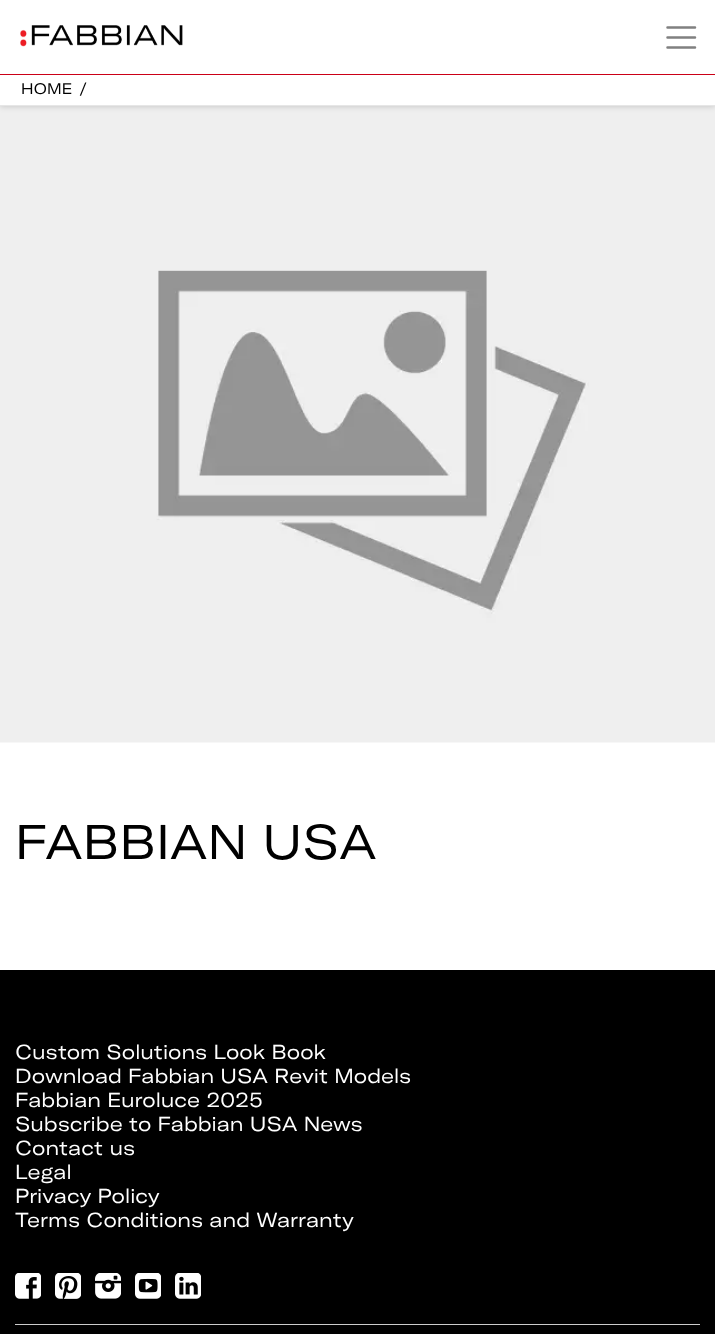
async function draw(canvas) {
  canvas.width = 715
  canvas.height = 1334
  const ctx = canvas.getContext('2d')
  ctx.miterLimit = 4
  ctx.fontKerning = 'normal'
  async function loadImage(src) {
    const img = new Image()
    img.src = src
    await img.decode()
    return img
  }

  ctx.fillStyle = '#fff'
  ctx.fillRect(0, 0, 715, 1334)
  ctx.drawImage(await loadImage('image1.png'), 0, 106, 715, 637)
  ctx.fillStyle = '#00000033'
  ctx.filter = 'blur(3px)'
  ctx.beginPath()
  ctx.rect(0, 0, 715, 106)
  ctx.fill()
  ctx.filter = 'none'
  ctx.fillStyle = '#fff'
  ctx.fillRect(0, 0, 715, 105)
  ctx.fillStyle = '#e6e6e6'
  ctx.fillRect(0, 105, 715, 1)
  ctx.fillStyle = '#cb0017'
  ctx.fillRect(0, 74, 715, 1)
  ctx.drawImage(await loadImage('image0.png'), 20, 25, 163, 22)
  ctx.beginPath()
  ctx.moveTo(667.5, 27.5)
  ctx.lineTo(695, 27.5)
  ctx.moveTo(667.5, 37.5)
  ctx.lineTo(695, 37.5)
  ctx.moveTo(667.5, 47.5)
  ctx.lineTo(695, 47.5)
  ctx.strokeStyle = '#808080'
  ctx.lineWidth = 2.5
  ctx.lineCap = 'round'
  ctx.stroke()
  ctx.font = '15px GT America'
  ctx.fillStyle = '#000'
  ctx.fillText('HOME', 21, 94)
  ctx.fillText('/', 79, 94)
  ctx.font = '48px GT America'
  ctx.fillText('FABBIAN USA', 15, 859)
  ctx.fillRect(0, 970, 715, 364)
  ctx.font = '20px GT America'
  ctx.fillStyle = '#fff'
  ctx.fillText('Custom Solutions Look Book', 15, 1059)
  ctx.fillText('Download Fabbian USA Revit Models', 15, 1083)
  ctx.fillText('Fabbian Euroluce 2025', 15, 1107)
  ctx.fillText('Subscribe to Fabbian USA News', 15, 1131)
  ctx.fillText('Contact us', 15, 1155)
  ctx.fillText('Legal', 15, 1179)
  ctx.fillText('Privacy Policy', 15, 1203)
  ctx.fillText('Terms Conditions and Warranty', 15, 1227)
  ctx.drawImage(await loadImage('image2.png'), 15, 1273, 26, 26)
  ctx.drawImage(await loadImage('image3.png'), 55, 1273, 26, 26)
  ctx.drawImage(await loadImage('image4.png'), 95, 1273, 26, 26)
  ctx.drawImage(await loadImage('image5.png'), 135, 1273, 26, 26)
  ctx.drawImage(await loadImage('image6.png'), 175, 1273, 26, 26)
  ctx.fillStyle = '#ccc'
  ctx.fillRect(15, 1324, 685, 1)
}

draw(document.querySelector('canvas'))
